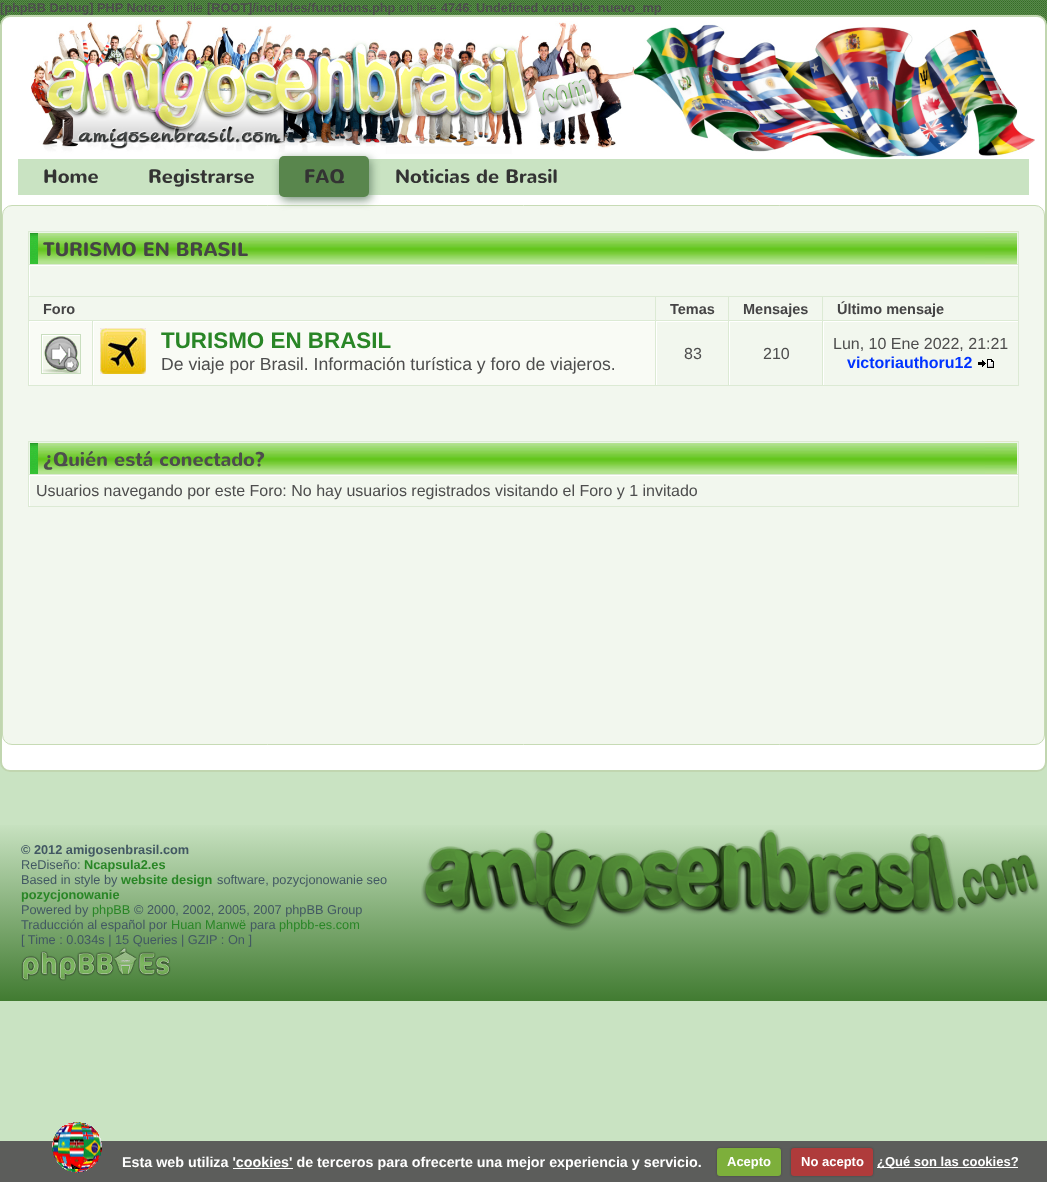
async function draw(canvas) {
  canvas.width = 1047
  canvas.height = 1182
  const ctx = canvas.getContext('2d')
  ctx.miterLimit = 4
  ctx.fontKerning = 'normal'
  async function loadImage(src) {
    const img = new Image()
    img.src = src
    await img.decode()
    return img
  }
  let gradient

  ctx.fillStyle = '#c9e3c2'
  ctx.fillRect(0, 0, 1047, 1182)
  ctx.drawImage(await loadImage('image0.png'), 0, 0, 1047, 25)
  ctx.font = 'bold 12.75px Liberation Sans'
  ctx.fillStyle = '#4d4d4d'
  ctx.fillText('[phpBB Debug] PHP Notice', 0, 12)
  ctx.font = '12.75px Liberation Sans'
  ctx.fillText(': in file', 166, 12)
  ctx.font = 'bold 12.75px Liberation Sans'
  ctx.fillText('[ROOT]/includes/functions.php', 207, 12)
  ctx.font = '12.75px Liberation Sans'
  ctx.fillText('on line', 399, 12)
  ctx.font = 'bold 12.75px Liberation Sans'
  ctx.fillText('4746', 441, 12)
  ctx.font = '12.75px Liberation Sans'
  ctx.fillText(':', 469, 12)
  ctx.font = 'bold 12.75px Liberation Sans'
  ctx.fillText('Undefined variable: nuevo_mp', 476, 12)
  ctx.fillStyle = '#fff'
  ctx.beginPath()
  ctx.roundRect(1, 16, 1045, 755, 9)
  ctx.fill()
  ctx.strokeStyle = '#c1d6b0'
  ctx.lineWidth = 2
  ctx.stroke()
  ctx.drawImage(await loadImage('image1.png'), 30, 19, 1005, 139)
  ctx.fillStyle = '#c9e3c2'
  ctx.fillRect(18, 159, 1011, 36)
  ctx.font = 'bold 19.25px Nunito'
  ctx.fillStyle = '#333'
  ctx.fillText('Home', 43, 183)
  ctx.fillText('Registrarse', 148, 183)
  ctx.fillStyle = '#f2f7ee'
  ctx.beginPath()
  ctx.roundRect(2.5, 205.5, 1042, 539, 9.5)
  ctx.fill()
  ctx.strokeStyle = '#c7dbb5'
  ctx.lineWidth = 1
  ctx.stroke()
  ctx.fillStyle = '#749076'
  ctx.filter = 'blur(5px)'
  ctx.beginPath()
  ctx.roundRect(281, 159, 90, 41, 5)
  ctx.fill()
  ctx.filter = 'none'
  ctx.fillStyle = '#59864d'
  ctx.beginPath()
  ctx.roundRect(279, 156, 90, 41, 5)
  ctx.fill()
  ctx.fillStyle = '#333'
  ctx.fillText('FAQ', 304, 183)
  ctx.fillText('Noticias de Brasil', 395, 183)
  ctx.drawImage(await loadImage('image2.png'), 28, 231, 957, 33)
  ctx.drawImage(await loadImage('image3.png'), 28, 232, 10, 32)
  ctx.fillStyle = '#454445'
  ctx.fillText('TURISMO EN BRASIL', 43, 256)
  ctx.drawImage(await loadImage('image4.png'), 985, 231, 34, 33)
  ctx.fillStyle = '#dcead4'
  ctx.fillRect(28, 264, 991, 122)
  ctx.fillStyle = '#f2f7ee'
  ctx.fillRect(30, 266, 988, 30)
  ctx.fillStyle = '#fff'
  ctx.fillRect(29, 265, 989, 1)
  ctx.fillRect(29, 265, 1, 31)
  ctx.fillStyle = '#f2f7ee'
  ctx.fillRect(29, 297, 626, 23)
  ctx.font = 'bold 14.5px Liberation Sans'
  ctx.fillStyle = '#454445'
  ctx.fillText('Foro', 43, 314)
  ctx.fillStyle = '#f2f7ee'
  ctx.fillRect(656, 297, 72, 23)
  ctx.fillStyle = '#454445'
  ctx.fillText('Temas', 670, 314)
  ctx.fillStyle = '#f2f7ee'
  ctx.fillRect(729, 297, 93, 23)
  ctx.fillStyle = '#454445'
  ctx.fillText('Mensajes', 743, 314)
  ctx.fillStyle = '#f2f7ee'
  ctx.fillRect(823, 297, 195, 23)
  ctx.fillStyle = '#454445'
  ctx.fillText('Último mensaje', 837, 314)
  ctx.fillStyle = '#f9fbf5'
  ctx.fillRect(30, 322, 62, 63)
  ctx.fillStyle = '#fff'
  ctx.fillRect(29, 321, 63, 1)
  ctx.fillRect(29, 321, 1, 64)
  ctx.drawImage(await loadImage('image5.png'), 41, 334, 40, 40)
  ctx.fillStyle = '#f9fbf5'
  ctx.fillRect(94, 322, 561, 63)
  ctx.fillStyle = '#fff'
  ctx.fillRect(93, 321, 562, 1)
  ctx.fillRect(93, 321, 1, 64)
  ctx.drawImage(await loadImage('image6.png'), 100, 328, 46, 46)
  ctx.font = 'bold 22.4px Liberation Sans'
  ctx.fillStyle = '#298626'
  ctx.fillText('TURISMO EN BRASIL', 161, 348)
  ctx.font = '17.6px Liberation Sans'
  ctx.fillStyle = '#4d4d4d'
  ctx.fillText('De viaje por Brasil. Información turística y foro de viajeros.', 161, 370)
  ctx.fillStyle = '#f2f7ee'
  ctx.fillRect(657, 322, 71, 63)
  ctx.fillStyle = '#fff'
  ctx.fillRect(656, 321, 72, 1)
  ctx.fillRect(656, 321, 1, 64)
  ctx.font = '16px Liberation Sans'
  ctx.fillStyle = '#4d4d4d'
  ctx.fillText('83', 684, 359)
  ctx.fillStyle = '#f2f7ee'
  ctx.fillRect(730, 322, 92, 63)
  ctx.fillStyle = '#fff'
  ctx.fillRect(729, 321, 93, 1)
  ctx.fillRect(729, 321, 1, 64)
  ctx.fillStyle = '#4d4d4d'
  ctx.fillText('210', 763, 359)
  ctx.fillStyle = '#f2f7ee'
  ctx.fillRect(824, 322, 194, 63)
  ctx.fillStyle = '#fff'
  ctx.fillRect(823, 321, 195, 1)
  ctx.fillRect(823, 321, 1, 64)
  ctx.fillStyle = '#4d4d4d'
  ctx.fillText('Lun, 10 Ene 2022, 21:21', 833, 349)
  ctx.font = 'bold 16px Liberation Sans'
  ctx.fillStyle = '#03f'
  ctx.fillText('victoriauthoru12', 847, 368)
  ctx.drawImage(await loadImage('image7.png'), 978, 359, 16, 9)
  ctx.drawImage(await loadImage('image2.png'), 28, 441, 957, 33)
  ctx.drawImage(await loadImage('image3.png'), 28, 442, 10, 32)
  ctx.font = 'bold 19.25px Nunito'
  ctx.fillStyle = '#4d4d4d'
  ctx.fillText('¿Quién está conectado?', 43, 466)
  ctx.drawImage(await loadImage('image4.png'), 985, 441, 34, 33)
  ctx.fillStyle = '#dcead4'
  ctx.fillRect(28, 474, 991, 33)
  ctx.fillStyle = '#f2f7ee'
  ctx.fillRect(30, 476, 988, 30)
  ctx.fillStyle = '#fff'
  ctx.fillRect(29, 475, 989, 1)
  ctx.fillRect(29, 475, 1, 31)
  ctx.font = '16px Liberation Sans'
  ctx.fillStyle = '#4d4d4d'
  ctx.fillText('Usuarios navegando por este Foro: No hay usuarios registrados visitando el Foro y 1 invitado', 36, 496)
  gradient = ctx.createLinearGradient(524, 822, 524, 1001)
  gradient.addColorStop(0, '#c9e3c2')
  gradient.addColorStop(1, '#417b31')
  ctx.fillStyle = gradient
  ctx.fillRect(0, 825, 1047, 176)
  ctx.font = 'bold 12.75px Liberation Sans'
  ctx.fillStyle = '#425863'
  ctx.fillText('© 2012 amigosenbrasil.com', 21, 854)
  ctx.font = '12.75px Liberation Sans'
  ctx.fillText('ReDiseño:', 21, 869)
  ctx.font = 'bold 12.75px Liberation Sans'
  ctx.fillStyle = '#298626'
  ctx.fillText('Ncapsula2.es', 84, 869)
  ctx.font = '12.75px Liberation Sans'
  ctx.fillStyle = '#425863'
  ctx.fillText('Based in style by', 21, 884)
  ctx.font = 'bold 12.75px Liberation Sans'
  ctx.fillStyle = '#298626'
  ctx.fillText('website design', 121, 884)
  ctx.font = '12.75px Liberation Sans'
  ctx.fillStyle = '#425863'
  ctx.fillText('software, pozycjonowanie seo', 217, 884)
  ctx.font = 'bold 12.75px Liberation Sans'
  ctx.fillStyle = '#298626'
  ctx.fillText('pozycjonowanie', 21, 899)
  ctx.font = '12.75px Liberation Sans'
  ctx.fillStyle = '#425863'
  ctx.fillText('Powered by', 21, 914)
  ctx.fillStyle = '#298626'
  ctx.fillText('phpBB', 92, 914)
  ctx.fillStyle = '#425863'
  ctx.fillText('© 2000, 2002, 2005, 2007 phpBB Group', 134, 914)
  ctx.fillText('Traducción al español por', 21, 929)
  ctx.fillStyle = '#298626'
  ctx.fillText('Huan Manwë', 171, 929)
  ctx.fillStyle = '#425863'
  ctx.fillText('para', 250, 929)
  ctx.fillStyle = '#298626'
  ctx.fillText('phpbb-es.com', 279, 929)
  ctx.fillStyle = '#425863'
  ctx.fillText('[ Time : 0.034s | 15 Queries | GZIP : On ]', 21, 944)
  ctx.drawImage(await loadImage('image8.png'), 21, 947, 150, 34)
  ctx.drawImage(await loadImage('image9.png'), 421, 829, 619, 102)
  ctx.fillStyle = '#5c5d5b'
  ctx.fillRect(0, 1141, 1047, 41)
  ctx.drawImage(await loadImage('image10.png'), 52, 1122, 50, 51)
  ctx.font = 'bold 14.3px Liberation Sans'
  ctx.fillStyle = '#fff'
  ctx.fillText('Esta web utiliza \'cookies\' de terceros para ofrecerte una mejor experiencia y servicio.', 122, 1167)
  ctx.fillRect(233, 1168, 60, 1)
  ctx.fillStyle = '#00000040'
  ctx.filter = 'blur(1px)'
  ctx.beginPath()
  ctx.roundRect(717, 1148, 64, 28, 3)
  ctx.fill()
  ctx.filter = 'none'
  ctx.fillStyle = '#7daf3b'
  ctx.beginPath()
  ctx.roundRect(717, 1148, 64, 28, 3)
  ctx.fill()
  ctx.font = 'bold 13px Liberation Sans'
  ctx.fillStyle = '#fff'
  ctx.fillText('Acepto', 727, 1166)
  ctx.fillStyle = '#00000040'
  ctx.filter = 'blur(1px)'
  ctx.beginPath()
  ctx.roundRect(791, 1148, 82, 28, 3)
  ctx.fill()
  ctx.filter = 'none'
  ctx.fillStyle = '#af3b3b'
  ctx.beginPath()
  ctx.roundRect(791, 1148, 82, 28, 3)
  ctx.fill()
  ctx.fillStyle = '#fff'
  ctx.fillText('No acepto', 801, 1166)
  ctx.fillRect(877, 1167, 141, 1)
  ctx.fillText('¿Qué son las cookies?', 877, 1166)
}

draw(document.querySelector('canvas'))
